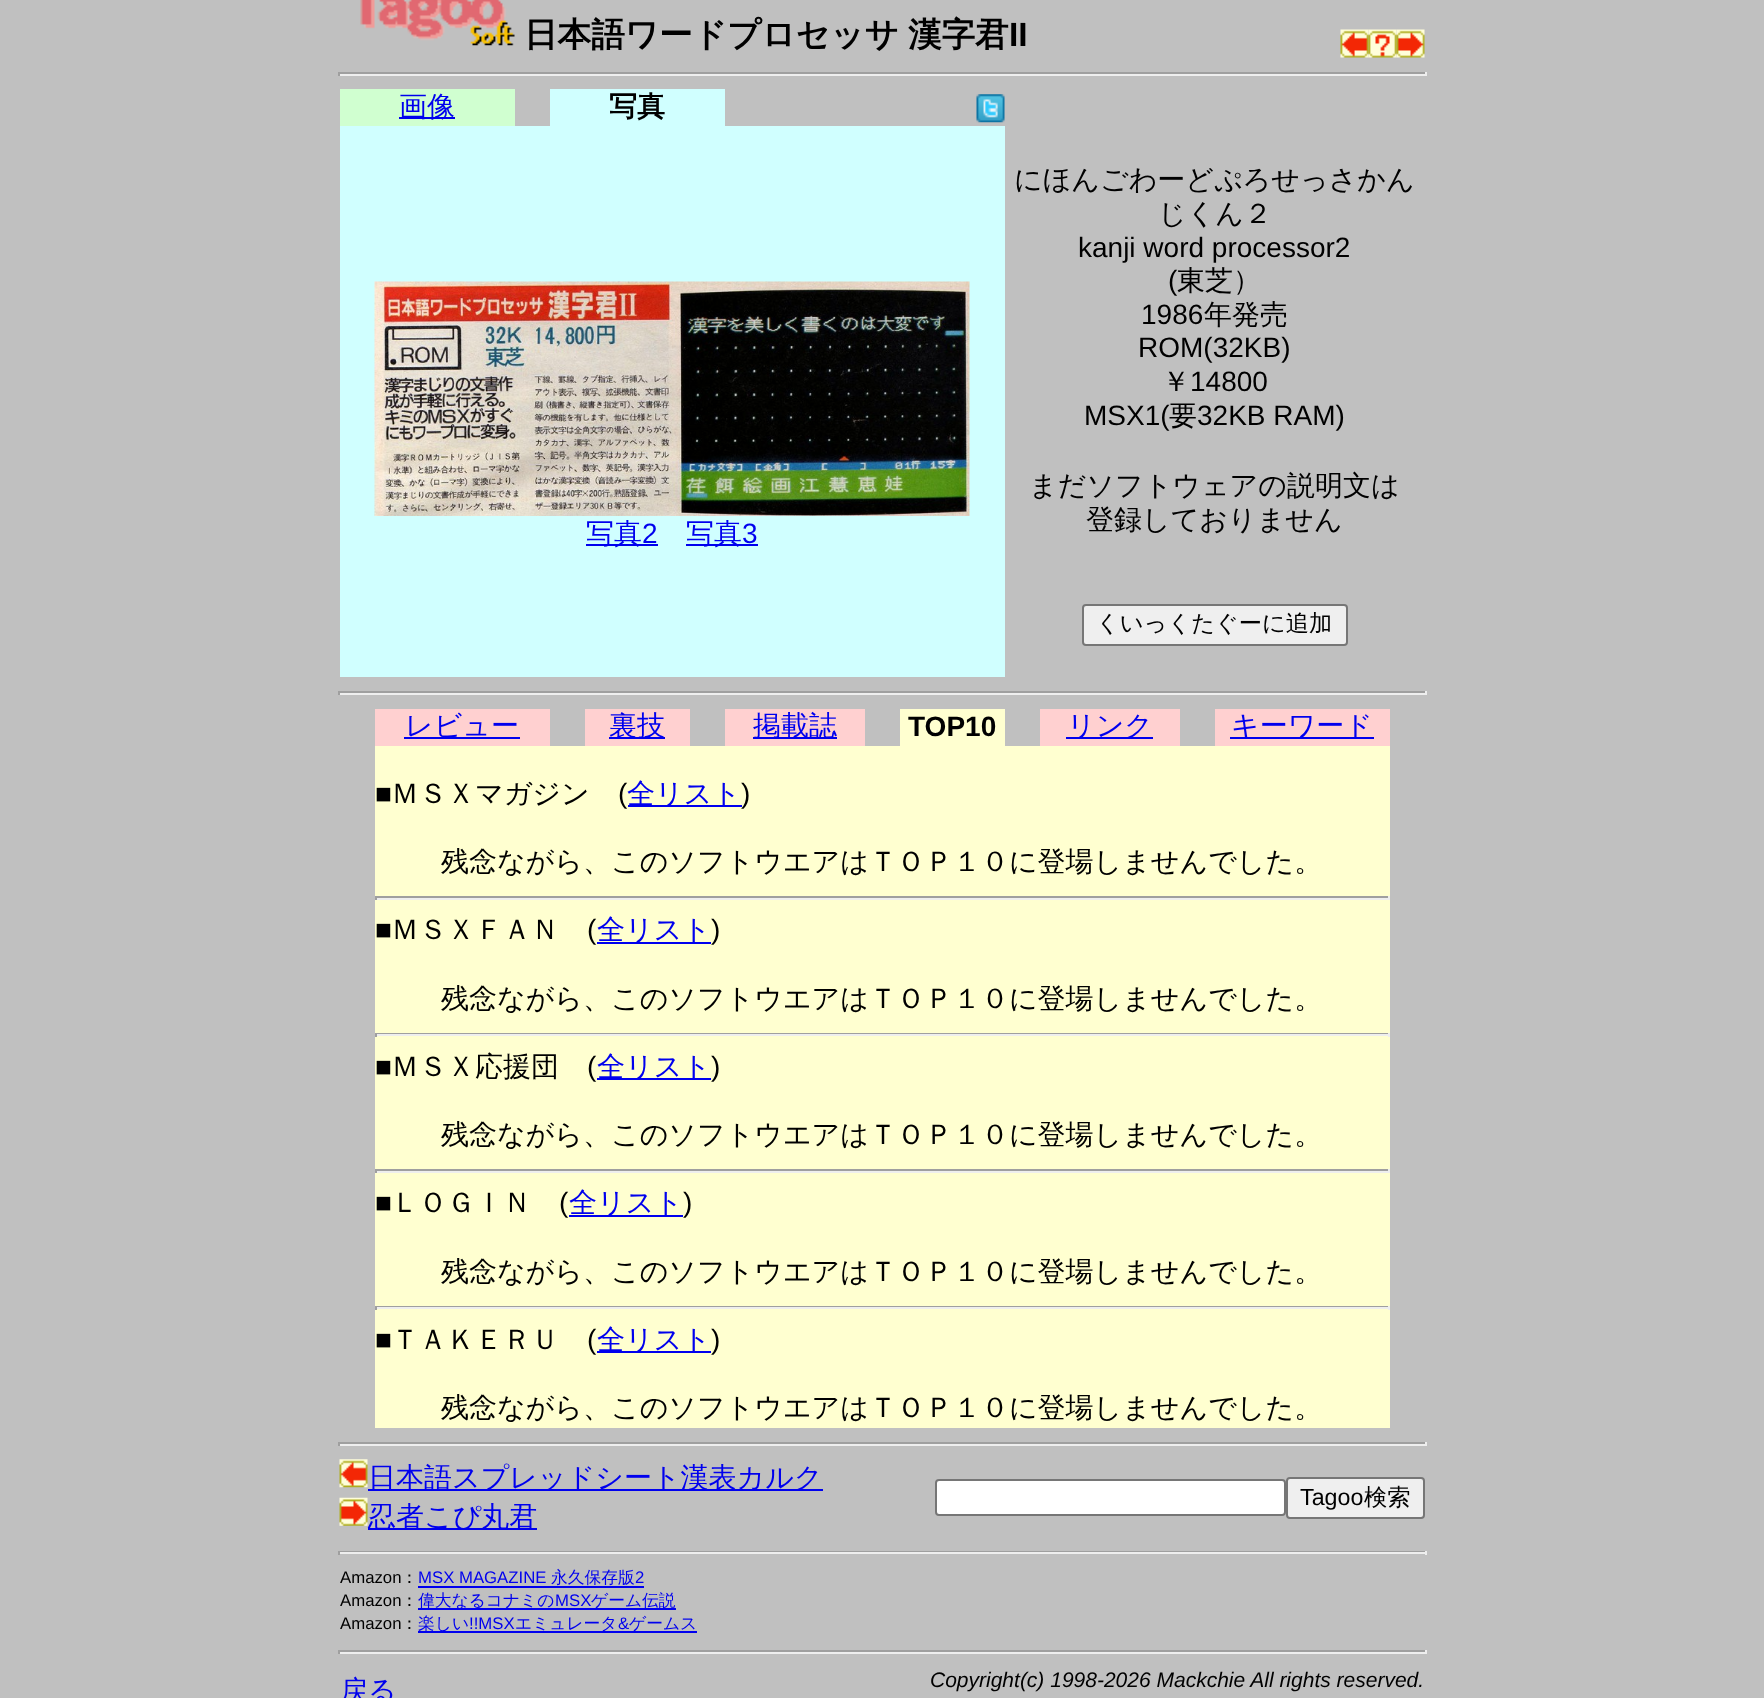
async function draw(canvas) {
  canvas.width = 1764
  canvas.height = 1698
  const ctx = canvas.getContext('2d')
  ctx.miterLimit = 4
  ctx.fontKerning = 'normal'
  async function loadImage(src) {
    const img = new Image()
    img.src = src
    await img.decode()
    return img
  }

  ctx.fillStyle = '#c0c0c0'
  ctx.fillRect(0, 0, 1764, 1698)
  ctx.drawImage(await loadImage('image0.png'), 360, 0, 155, 46)
  ctx.wordSpacing = '-1px'
  ctx.font = 'bold 33.6px WenQuanYi Zen Hei'
  ctx.fillStyle = '#000'
  ctx.fillText('日本語ワードプロセッサ 漢字君', 524, 46)
  ctx.wordSpacing = '0px'
  ctx.font = 'bold 33.6px Liberation Sans'
  ctx.fillText('II', 1009, 46)
  ctx.drawImage(await loadImage('image1.png'), 1340, 29, 29, 29)
  ctx.drawImage(await loadImage('image2.png'), 1368, 29, 29, 29)
  ctx.drawImage(await loadImage('image3.png'), 1396, 29, 29, 29)
  ctx.fillStyle = '#9f9f9f'
  ctx.fillRect(338, 72, 1088, 2)
  ctx.fillStyle = '#eee'
  ctx.fillRect(1425, 72, 2, 4)
  ctx.fillRect(338, 74, 1088, 2)
  ctx.fillStyle = '#9f9f9f'
  ctx.fillRect(338, 72, 2, 4)
  ctx.fillStyle = '#d0ffd0'
  ctx.fillRect(340, 89, 175, 37)
  ctx.fillStyle = '#00e'
  ctx.fillRect(399, 117, 56, 2)
  ctx.font = '500 28px WenQuanYi Zen Hei'
  ctx.fillText('画像', 399, 116)
  ctx.fillStyle = '#d0ffff'
  ctx.fillRect(550, 89, 175, 37)
  ctx.font = 'bold 28px WenQuanYi Zen Hei'
  ctx.fillStyle = '#000'
  ctx.fillText('写真', 609, 116)
  ctx.drawImage(await loadImage('image4.png'), 976, 94, 29, 29)
  ctx.fillStyle = '#d0ffff'
  ctx.fillRect(340, 126, 665, 551)
  ctx.drawImage(await loadImage('image5.png'), 374, 281, 596, 235)
  ctx.fillStyle = '#00e'
  ctx.fillRect(586, 544, 72, 2)
  ctx.font = '500 28px WenQuanYi Zen Hei'
  ctx.fillText('写真', 586, 543)
  ctx.font = '28px Liberation Sans'
  ctx.fillText('2', 642, 543)
  ctx.fillRect(686, 544, 72, 2)
  ctx.font = '500 28px WenQuanYi Zen Hei'
  ctx.fillText('写真', 686, 543)
  ctx.font = '28px Liberation Sans'
  ctx.fillText('3', 742, 543)
  ctx.font = '500 28px WenQuanYi Zen Hei'
  ctx.fillStyle = '#000'
  ctx.fillText('にほんごわーどぷろせっさかん', 1014, 189)
  ctx.fillText('じくん２', 1158, 223)
  ctx.font = '28px Liberation Sans'
  ctx.fillText('kanji word processor2', 1078, 257)
  ctx.fillText('(', 1168, 290)
  ctx.font = '500 28px WenQuanYi Zen Hei'
  ctx.fillText('東芝）', 1177, 290)
  ctx.font = '28px Liberation Sans'
  ctx.fillText('1986', 1141, 324)
  ctx.font = '500 28px WenQuanYi Zen Hei'
  ctx.fillText('年発売', 1204, 324)
  ctx.font = '28px Liberation Sans'
  ctx.fillText('ROM(32KB)', 1138, 357)
  ctx.font = '500 28px WenQuanYi Zen Hei'
  ctx.fillText('￥', 1162, 391)
  ctx.font = '28px Liberation Sans'
  ctx.fillText('14800', 1190, 391)
  ctx.fillText('MSX1(', 1084, 425)
  ctx.font = '500 28px WenQuanYi Zen Hei'
  ctx.fillText('要', 1169, 425)
  ctx.font = '28px Liberation Sans'
  ctx.fillText('32KB RAM)', 1197, 425)
  ctx.font = '500 28px WenQuanYi Zen Hei'
  ctx.fillText('まだソフトウェアの説明文は', 1029, 495)
  ctx.fillText('登録しておりません', 1086, 529)
  ctx.fillStyle = '#efefef'
  ctx.beginPath()
  ctx.roundRect(1083, 605, 264, 40, 3)
  ctx.fill()
  ctx.strokeStyle = '#767676'
  ctx.lineWidth = 2
  ctx.stroke()
  ctx.font = '500 23.25px WenQuanYi Zen Hei'
  ctx.fillStyle = '#000'
  ctx.fillText('くいっくたぐーに追加', 1096, 631)
  ctx.fillStyle = '#9f9f9f'
  ctx.fillRect(338, 691, 1088, 2)
  ctx.fillStyle = '#eee'
  ctx.fillRect(1425, 691, 2, 4)
  ctx.fillRect(338, 693, 1088, 2)
  ctx.fillStyle = '#9f9f9f'
  ctx.fillRect(338, 691, 2, 4)
  ctx.fillStyle = '#ffd0d0'
  ctx.fillRect(375, 709, 175, 37)
  ctx.fillStyle = '#00e'
  ctx.fillRect(404, 737, 116, 2)
  ctx.font = '500 28px WenQuanYi Zen Hei'
  ctx.fillText('レビュー', 405, 735)
  ctx.fillStyle = '#ffd0d0'
  ctx.fillRect(585, 709, 105, 37)
  ctx.fillStyle = '#00e'
  ctx.fillRect(609, 737, 56, 2)
  ctx.fillText('裏技', 609, 735)
  ctx.fillStyle = '#ffd0d0'
  ctx.fillRect(725, 709, 140, 37)
  ctx.fillStyle = '#00e'
  ctx.fillRect(753, 737, 84, 2)
  ctx.fillText('掲載誌', 753, 735)
  ctx.fillStyle = '#ffffd0'
  ctx.fillRect(900, 709, 105, 37)
  ctx.font = 'bold 28px Liberation Sans'
  ctx.fillStyle = '#000'
  ctx.fillText('TOP10', 908, 736)
  ctx.fillStyle = '#ffd0d0'
  ctx.fillRect(1040, 709, 140, 37)
  ctx.fillStyle = '#00e'
  ctx.fillRect(1066, 737, 87, 2)
  ctx.font = '500 28px WenQuanYi Zen Hei'
  ctx.fillText('リンク', 1067, 735)
  ctx.fillStyle = '#ffd0d0'
  ctx.fillRect(1215, 709, 175, 37)
  ctx.fillStyle = '#00e'
  ctx.fillRect(1230, 737, 144, 2)
  ctx.fillText('キーワード', 1231, 735)
  ctx.fillStyle = '#ffffd0'
  ctx.fillRect(375, 746, 1015, 682)
  ctx.font = '28px Liberation Sans'
  ctx.fillStyle = '#000'
  ctx.fillText('■', 375, 803)
  ctx.font = '500 28px WenQuanYi Zen Hei'
  ctx.fillText('ＭＳＸマガジン', 391, 803)
  ctx.font = '28px Liberation Sans'
  ctx.fillText('(', 618, 803)
  ctx.fillStyle = '#00e'
  ctx.fillRect(628, 805, 114, 2)
  ctx.font = '500 28px WenQuanYi Zen Hei'
  ctx.fillText('全リスト', 627, 803)
  ctx.font = '28px Liberation Sans'
  ctx.fillStyle = '#000'
  ctx.fillText(')', 741, 803)
  ctx.font = '500 28px WenQuanYi Zen Hei'
  ctx.fillText('残念ながら、このソフトウエアはＴＯＰ１０に登場しませんでした。', 441, 871)
  ctx.fillStyle = '#9f9f9f'
  ctx.fillRect(375, 896, 1015, 2)
  ctx.fillStyle = '#eee'
  ctx.fillRect(1388, 896, 2, 4)
  ctx.fillRect(375, 898, 1015, 2)
  ctx.fillStyle = '#9f9f9f'
  ctx.fillRect(375, 896, 2, 4)
  ctx.font = '28px Liberation Sans'
  ctx.fillStyle = '#000'
  ctx.fillText('■', 375, 939)
  ctx.font = '500 28px WenQuanYi Zen Hei'
  ctx.fillText('ＭＳＸＦＡＮ', 391, 939)
  ctx.font = '28px Liberation Sans'
  ctx.fillText('(', 587, 939)
  ctx.fillStyle = '#00e'
  ctx.fillRect(597, 942, 114, 2)
  ctx.font = '500 28px WenQuanYi Zen Hei'
  ctx.fillText('全リスト', 597, 939)
  ctx.font = '28px Liberation Sans'
  ctx.fillStyle = '#000'
  ctx.fillText(')', 711, 939)
  ctx.font = '500 28px WenQuanYi Zen Hei'
  ctx.fillText('残念ながら、このソフトウエアはＴＯＰ１０に登場しませんでした。', 441, 1008)
  ctx.fillStyle = '#9f9f9f'
  ctx.fillRect(375, 1033, 1015, 1)
  ctx.fillStyle = '#eee'
  ctx.fillRect(1388, 1033, 2, 4)
  ctx.fillRect(375, 1034, 1015, 2)
  ctx.fillStyle = '#9f9f9f'
  ctx.fillRect(375, 1033, 2, 4)
  ctx.font = '28px Liberation Sans'
  ctx.fillStyle = '#000'
  ctx.fillText('■', 375, 1076)
  ctx.font = '500 28px WenQuanYi Zen Hei'
  ctx.fillText('ＭＳＸ応援団', 391, 1076)
  ctx.font = '28px Liberation Sans'
  ctx.fillText('(', 587, 1076)
  ctx.fillStyle = '#00e'
  ctx.fillRect(597, 1078, 114, 2)
  ctx.font = '500 28px WenQuanYi Zen Hei'
  ctx.fillText('全リスト', 597, 1076)
  ctx.font = '28px Liberation Sans'
  ctx.fillStyle = '#000'
  ctx.fillText(')', 711, 1076)
  ctx.font = '500 28px WenQuanYi Zen Hei'
  ctx.fillText('残念ながら、このソフトウエアはＴＯＰ１０に登場しませんでした。', 441, 1144)
  ctx.fillStyle = '#9f9f9f'
  ctx.fillRect(375, 1169, 1015, 2)
  ctx.fillStyle = '#eee'
  ctx.fillRect(1388, 1169, 2, 4)
  ctx.fillRect(375, 1171, 1015, 2)
  ctx.fillStyle = '#9f9f9f'
  ctx.fillRect(375, 1169, 2, 4)
  ctx.font = '28px Liberation Sans'
  ctx.fillStyle = '#000'
  ctx.fillText('■', 375, 1212)
  ctx.font = '500 28px WenQuanYi Zen Hei'
  ctx.fillText('ＬＯＧＩＮ', 391, 1212)
  ctx.font = '28px Liberation Sans'
  ctx.fillText('(', 559, 1212)
  ctx.fillStyle = '#00e'
  ctx.fillRect(569, 1215, 114, 2)
  ctx.font = '500 28px WenQuanYi Zen Hei'
  ctx.fillText('全リスト', 569, 1212)
  ctx.font = '28px Liberation Sans'
  ctx.fillStyle = '#000'
  ctx.fillText(')', 683, 1212)
  ctx.font = '500 28px WenQuanYi Zen Hei'
  ctx.fillText('残念ながら、このソフトウエアはＴＯＰ１０に登場しませんでした。', 441, 1281)
  ctx.fillStyle = '#9f9f9f'
  ctx.fillRect(375, 1306, 1015, 1)
  ctx.fillStyle = '#eee'
  ctx.fillRect(1388, 1306, 2, 4)
  ctx.fillRect(375, 1307, 1015, 2)
  ctx.fillStyle = '#9f9f9f'
  ctx.fillRect(375, 1306, 2, 4)
  ctx.font = '28px Liberation Sans'
  ctx.fillStyle = '#000'
  ctx.fillText('■', 375, 1349)
  ctx.font = '500 28px WenQuanYi Zen Hei'
  ctx.fillText('ＴＡＫＥＲＵ', 391, 1349)
  ctx.font = '28px Liberation Sans'
  ctx.fillText('(', 587, 1349)
  ctx.fillStyle = '#00e'
  ctx.fillRect(597, 1351, 114, 2)
  ctx.font = '500 28px WenQuanYi Zen Hei'
  ctx.fillText('全リスト', 597, 1349)
  ctx.font = '28px Liberation Sans'
  ctx.fillStyle = '#000'
  ctx.fillText(')', 711, 1349)
  ctx.font = '500 28px WenQuanYi Zen Hei'
  ctx.fillText('残念ながら、このソフトウエアはＴＯＰ１０に登場しませんでした。', 441, 1417)
  ctx.fillStyle = '#9f9f9f'
  ctx.fillRect(338, 1442, 1088, 2)
  ctx.fillStyle = '#eee'
  ctx.fillRect(1425, 1442, 2, 4)
  ctx.fillRect(338, 1444, 1088, 2)
  ctx.fillStyle = '#9f9f9f'
  ctx.fillRect(338, 1442, 2, 4)
  ctx.drawImage(await loadImage('image6.png'), 339, 1459, 29, 29)
  ctx.fillStyle = '#00e'
  ctx.fillRect(368, 1489, 455, 2)
  ctx.fillText('日本語スプレッドシート漢表カルク', 368, 1487)
  ctx.drawImage(await loadImage('image7.png'), 339, 1497, 29, 29)
  ctx.fillRect(368, 1528, 169, 2)
  ctx.fillText('忍者こぴ丸君', 368, 1526)
  ctx.fillStyle = '#fff'
  ctx.beginPath()
  ctx.roundRect(936, 1480, 349, 35, 3)
  ctx.fill()
  ctx.stroke()
  ctx.fillStyle = '#efefef'
  ctx.beginPath()
  ctx.roundRect(1287, 1478, 137, 40, 3)
  ctx.fill()
  ctx.stroke()
  ctx.font = '23.25px Liberation Sans'
  ctx.fillStyle = '#000'
  ctx.fillText('Tagoo', 1300, 1505)
  ctx.font = '500 23.25px WenQuanYi Zen Hei'
  ctx.fillText('検索', 1364, 1505)
  ctx.fillStyle = '#9f9f9f'
  ctx.fillRect(338, 1551, 1088, 1)
  ctx.fillStyle = '#eee'
  ctx.fillRect(1425, 1551, 2, 4)
  ctx.fillRect(338, 1552, 1088, 2)
  ctx.fillStyle = '#9f9f9f'
  ctx.fillRect(338, 1551, 2, 4)
  ctx.font = '16.75px Liberation Sans'
  ctx.fillStyle = '#000'
  ctx.fillText('Amazon', 340, 1583)
  ctx.font = '500 16.75px WenQuanYi Zen Hei'
  ctx.fillText('：', 401, 1583)
  ctx.font = '16.75px Liberation Sans'
  ctx.fillStyle = '#00e'
  ctx.fillText('MSX MAGAZINE', 418, 1583)
  ctx.fillRect(418, 1586, 226, 2)
  ctx.font = '500 16.75px WenQuanYi Zen Hei'
  ctx.fillText('永久保存版', 551, 1583)
  ctx.font = '16.75px Liberation Sans'
  ctx.fillText('2', 635, 1583)
  ctx.fillStyle = '#000'
  ctx.fillText('Amazon', 340, 1606)
  ctx.font = '500 16.75px WenQuanYi Zen Hei'
  ctx.fillText('：', 401, 1606)
  ctx.fillStyle = '#00e'
  ctx.fillRect(418, 1608, 258, 2)
  ctx.fillText('偉大なるコナミの', 418, 1606)
  ctx.font = '16.75px Liberation Sans'
  ctx.fillText('MSX', 555, 1606)
  ctx.font = '500 16.75px WenQuanYi Zen Hei'
  ctx.fillText('ゲーム伝説', 591, 1606)
  ctx.font = '16.75px Liberation Sans'
  ctx.fillStyle = '#000'
  ctx.fillText('Amazon', 340, 1629)
  ctx.font = '500 16.75px WenQuanYi Zen Hei'
  ctx.fillText('：', 401, 1629)
  ctx.fillStyle = '#00e'
  ctx.fillRect(418, 1631, 279, 2)
  ctx.fillText('楽しい', 418, 1629)
  ctx.font = '16.75px Liberation Sans'
  ctx.fillText('!!MSX', 469, 1629)
  ctx.font = '500 16.75px WenQuanYi Zen Hei'
  ctx.fillText('エミュレータ', 515, 1629)
  ctx.font = '16.75px Liberation Sans'
  ctx.fillText('&', 618, 1629)
  ctx.font = '500 16.75px WenQuanYi Zen Hei'
  ctx.fillText('ゲームス', 629, 1629)
  ctx.fillStyle = '#9f9f9f'
  ctx.fillRect(338, 1650, 1088, 2)
  ctx.fillStyle = '#eee'
  ctx.fillRect(1425, 1650, 2, 4)
  ctx.fillRect(338, 1652, 1088, 2)
  ctx.fillStyle = '#9f9f9f'
  ctx.fillRect(338, 1650, 2, 4)
  ctx.font = '500 28px WenQuanYi Zen Hei'
  ctx.fillStyle = '#00e'
  ctx.fillText('戻る', 340, 1700)
  ctx.font = 'italic 21px Liberation Sans'
  ctx.fillStyle = '#000'
  ctx.fillText('Copyright(c) 1998-2026 Mackchie All rights reserved.', 930, 1687)
}

draw(document.querySelector('canvas'))
